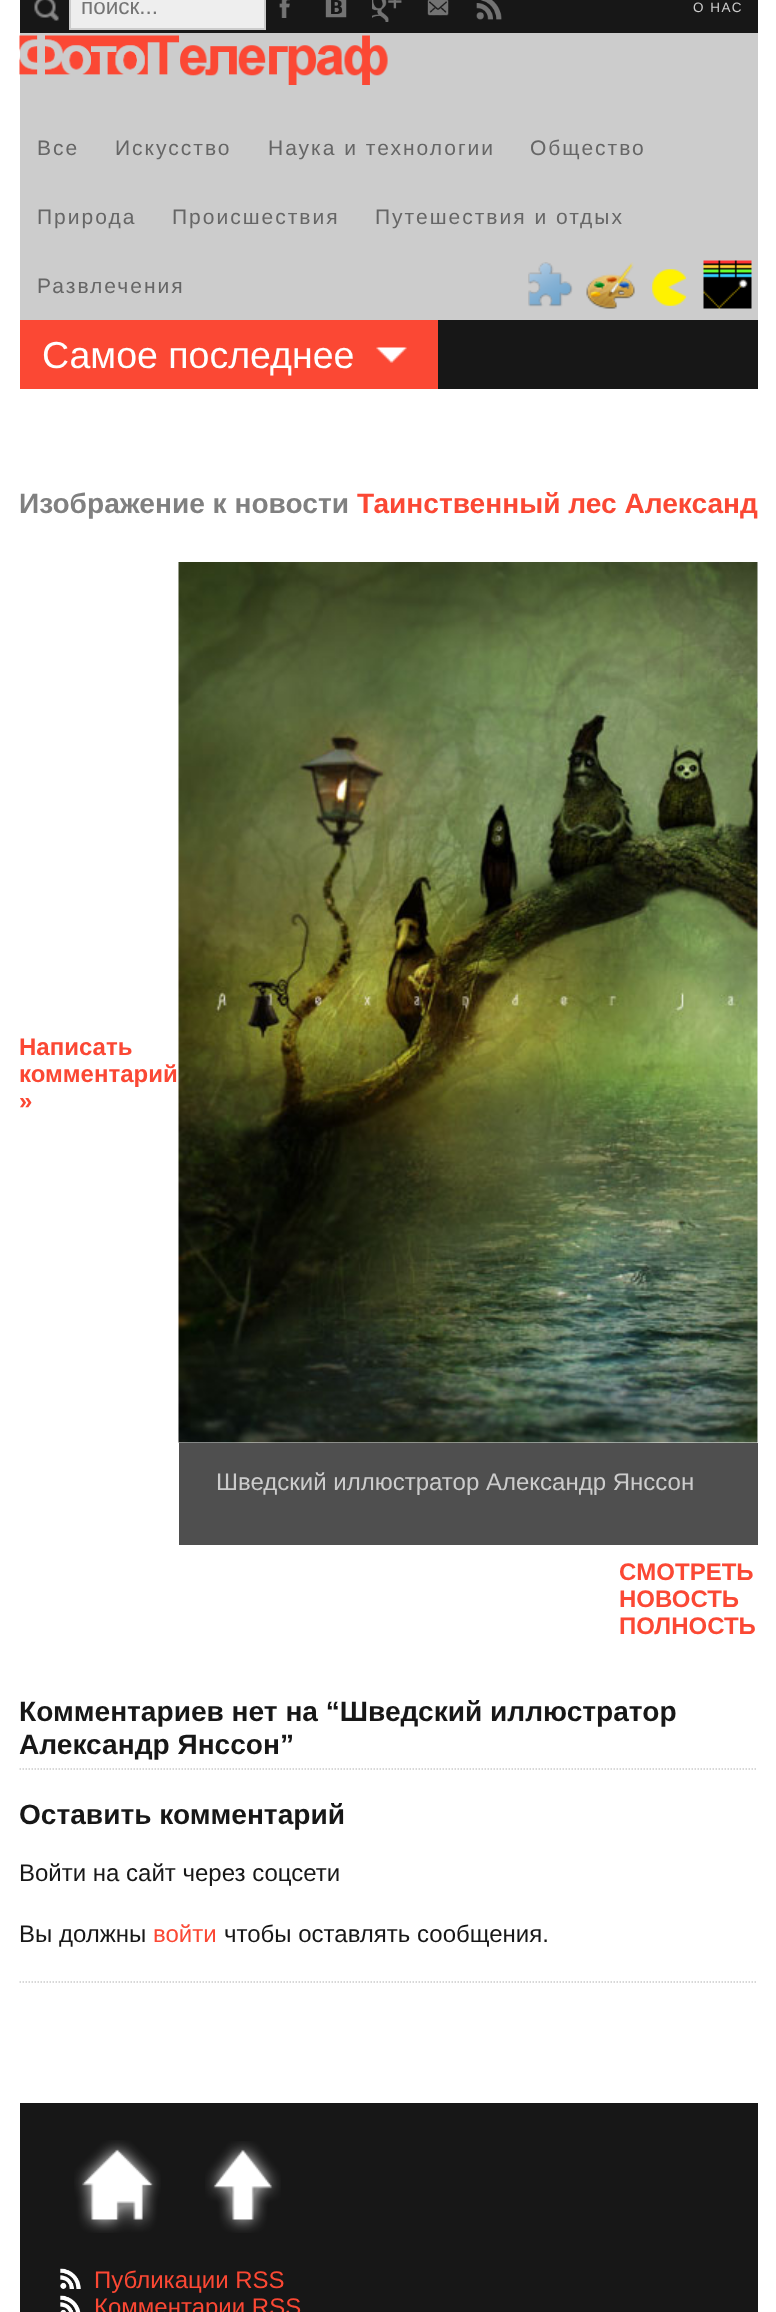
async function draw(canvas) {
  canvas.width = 776
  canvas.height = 2312
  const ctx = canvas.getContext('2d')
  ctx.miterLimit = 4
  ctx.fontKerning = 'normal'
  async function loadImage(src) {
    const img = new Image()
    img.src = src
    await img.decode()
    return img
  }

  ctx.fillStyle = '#fff'
  ctx.fillRect(0, 0, 776, 2312)
  ctx.fillStyle = '#ccc'
  ctx.fillRect(20, 33, 738, 287)
  ctx.fillStyle = '#171717'
  ctx.fillRect(20, 0, 738, 33)
  ctx.drawImage(await loadImage('image0.png'), 34, 0, 25, 21)
  ctx.fillStyle = '#eee'
  ctx.beginPath()
  ctx.rect(70, -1, 195, 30)
  ctx.fill()
  ctx.strokeStyle = '#ccc'
  ctx.lineWidth = 2
  ctx.stroke()
  ctx.font = '22.5px Liberation Sans'
  ctx.fillStyle = '#757575'
  ctx.fillText('поиск...', 81, 14)
  ctx.drawImage(await loadImage('image1.png'), 279, 0, 11, 18)
  ctx.drawImage(await loadImage('image2.png'), 325, 0, 22, 18)
  ctx.drawImage(await loadImage('image3.png'), 372, 0, 30, 22)
  ctx.drawImage(await loadImage('image4.png'), 427, 0, 22, 16)
  ctx.drawImage(await loadImage('image5.png'), 476, 0, 26, 20)
  ctx.letterSpacing = '1.5px'
  ctx.font = '13.5px Liberation Sans'
  ctx.fillStyle = '#ccc'
  ctx.fillText('О НАС', 693, 12)
  ctx.drawImage(await loadImage('image6.png'), 19, 35, 369, 50)
  ctx.letterSpacing = '2px'
  ctx.font = '21px Liberation Sans'
  ctx.fillStyle = '#666'
  ctx.fillText('Все', 37, 155)
  ctx.fillText('Искусство', 115, 155)
  ctx.fillText('Наука и технологии', 268, 155)
  ctx.fillText('Общество', 530, 155)
  ctx.fillText('Природа', 37, 224)
  ctx.fillText('Происшествия', 172, 224)
  ctx.fillText('Путешествия и отдых', 375, 224)
  ctx.fillText('Развлечения', 37, 293)
  ctx.fillStyle = '#171717'
  ctx.fillRect(438, 320, 320, 69)
  ctx.drawImage(await loadImage('image7.png'), 528, 262, 45, 45)
  ctx.drawImage(await loadImage('image8.png'), 586, 262, 49, 47)
  ctx.drawImage(await loadImage('image9.png'), 652, 269, 35, 37)
  ctx.drawImage(await loadImage('image10.png'), 703, 260, 49, 49)
  ctx.fillStyle = '#fb4834'
  ctx.fillRect(20, 320, 418, 69)
  ctx.drawImage(await loadImage('image11.png'), 376, 347, 31, 16)
  ctx.letterSpacing = '0px'
  ctx.font = '37.5px Liberation Sans'
  ctx.fillStyle = '#fff'
  ctx.fillText('Самое последнее', 42, 368)
  ctx.font = 'bold 28.1px Liberation Sans'
  ctx.fillStyle = '#808080'
  ctx.fillText('Изображение к новости', 19, 513)
  ctx.fillStyle = '#fb4834'
  ctx.fillText('Таинственный лес Александ', 357, 513)
  ctx.font = 'bold 24px Liberation Sans'
  ctx.fillText('Написать', 19, 1055)
  ctx.fillText('комментарий', 19, 1082)
  ctx.fillText('»', 19, 1109)
  ctx.drawImage(await loadImage('image12.png'), 178, 562, 580, 881)
  ctx.fillStyle = '#4f4f4f'
  ctx.fillRect(179, 1443, 579, 102)
  ctx.font = '24px Liberation Sans'
  ctx.fillStyle = '#ccc'
  ctx.fillText('Шведский иллюстратор Александр Янссон', 216, 1490)
  ctx.font = 'bold 24px Liberation Sans'
  ctx.fillStyle = '#fb4834'
  ctx.fillText('CМОТРЕТЬ', 619, 1580)
  ctx.fillText('НОВОСТЬ', 619, 1607)
  ctx.fillText('ПОЛНОСТЬ', 619, 1634)
  ctx.beginPath()
  ctx.moveTo(19.5, 1769)
  ctx.lineTo(757.5, 1769)
  ctx.lineWidth = 1.5
  ctx.setLineDash([1.5, 1.5])
  ctx.stroke()
  ctx.font = 'bold 28.1px Liberation Sans'
  ctx.fillStyle = '#171717'
  ctx.fillText('Комментариев нет на “Шведский иллюстратор', 19, 1721)
  ctx.fillText('Александр Янссон”', 19, 1754)
  ctx.beginPath()
  ctx.moveTo(19.5, 1982)
  ctx.lineTo(757.5, 1982)
  ctx.stroke()
  ctx.fillText('Оставить комментарий', 19, 1824)
  ctx.font = '24px Liberation Sans'
  ctx.fillText('Войти на сайт через соцсети', 19, 1881)
  ctx.fillText('Вы должны', 19, 1942)
  ctx.fillStyle = '#fb4834'
  ctx.fillText('войти', 153, 1942)
  ctx.fillStyle = '#171717'
  ctx.fillText('чтобы оставлять сообщения.', 224, 1942)
  ctx.fillRect(20, 2103, 738, 209)
  ctx.drawImage(await loadImage('image13.png'), 74, 2140, 87, 93)
  ctx.drawImage(await loadImage('image14.png'), 205, 2141, 76, 92)
  ctx.drawImage(await loadImage('image15.png'), 60, 2268, 21, 21)
  ctx.fillStyle = '#fb4834'
  ctx.fillText('Публикации RSS', 94, 2288)
  ctx.drawImage(await loadImage('image16.png'), 60, 2295, 21, 17)
  ctx.fillText('Комментарии RSS', 94, 2315)
}

draw(document.querySelector('canvas'))
